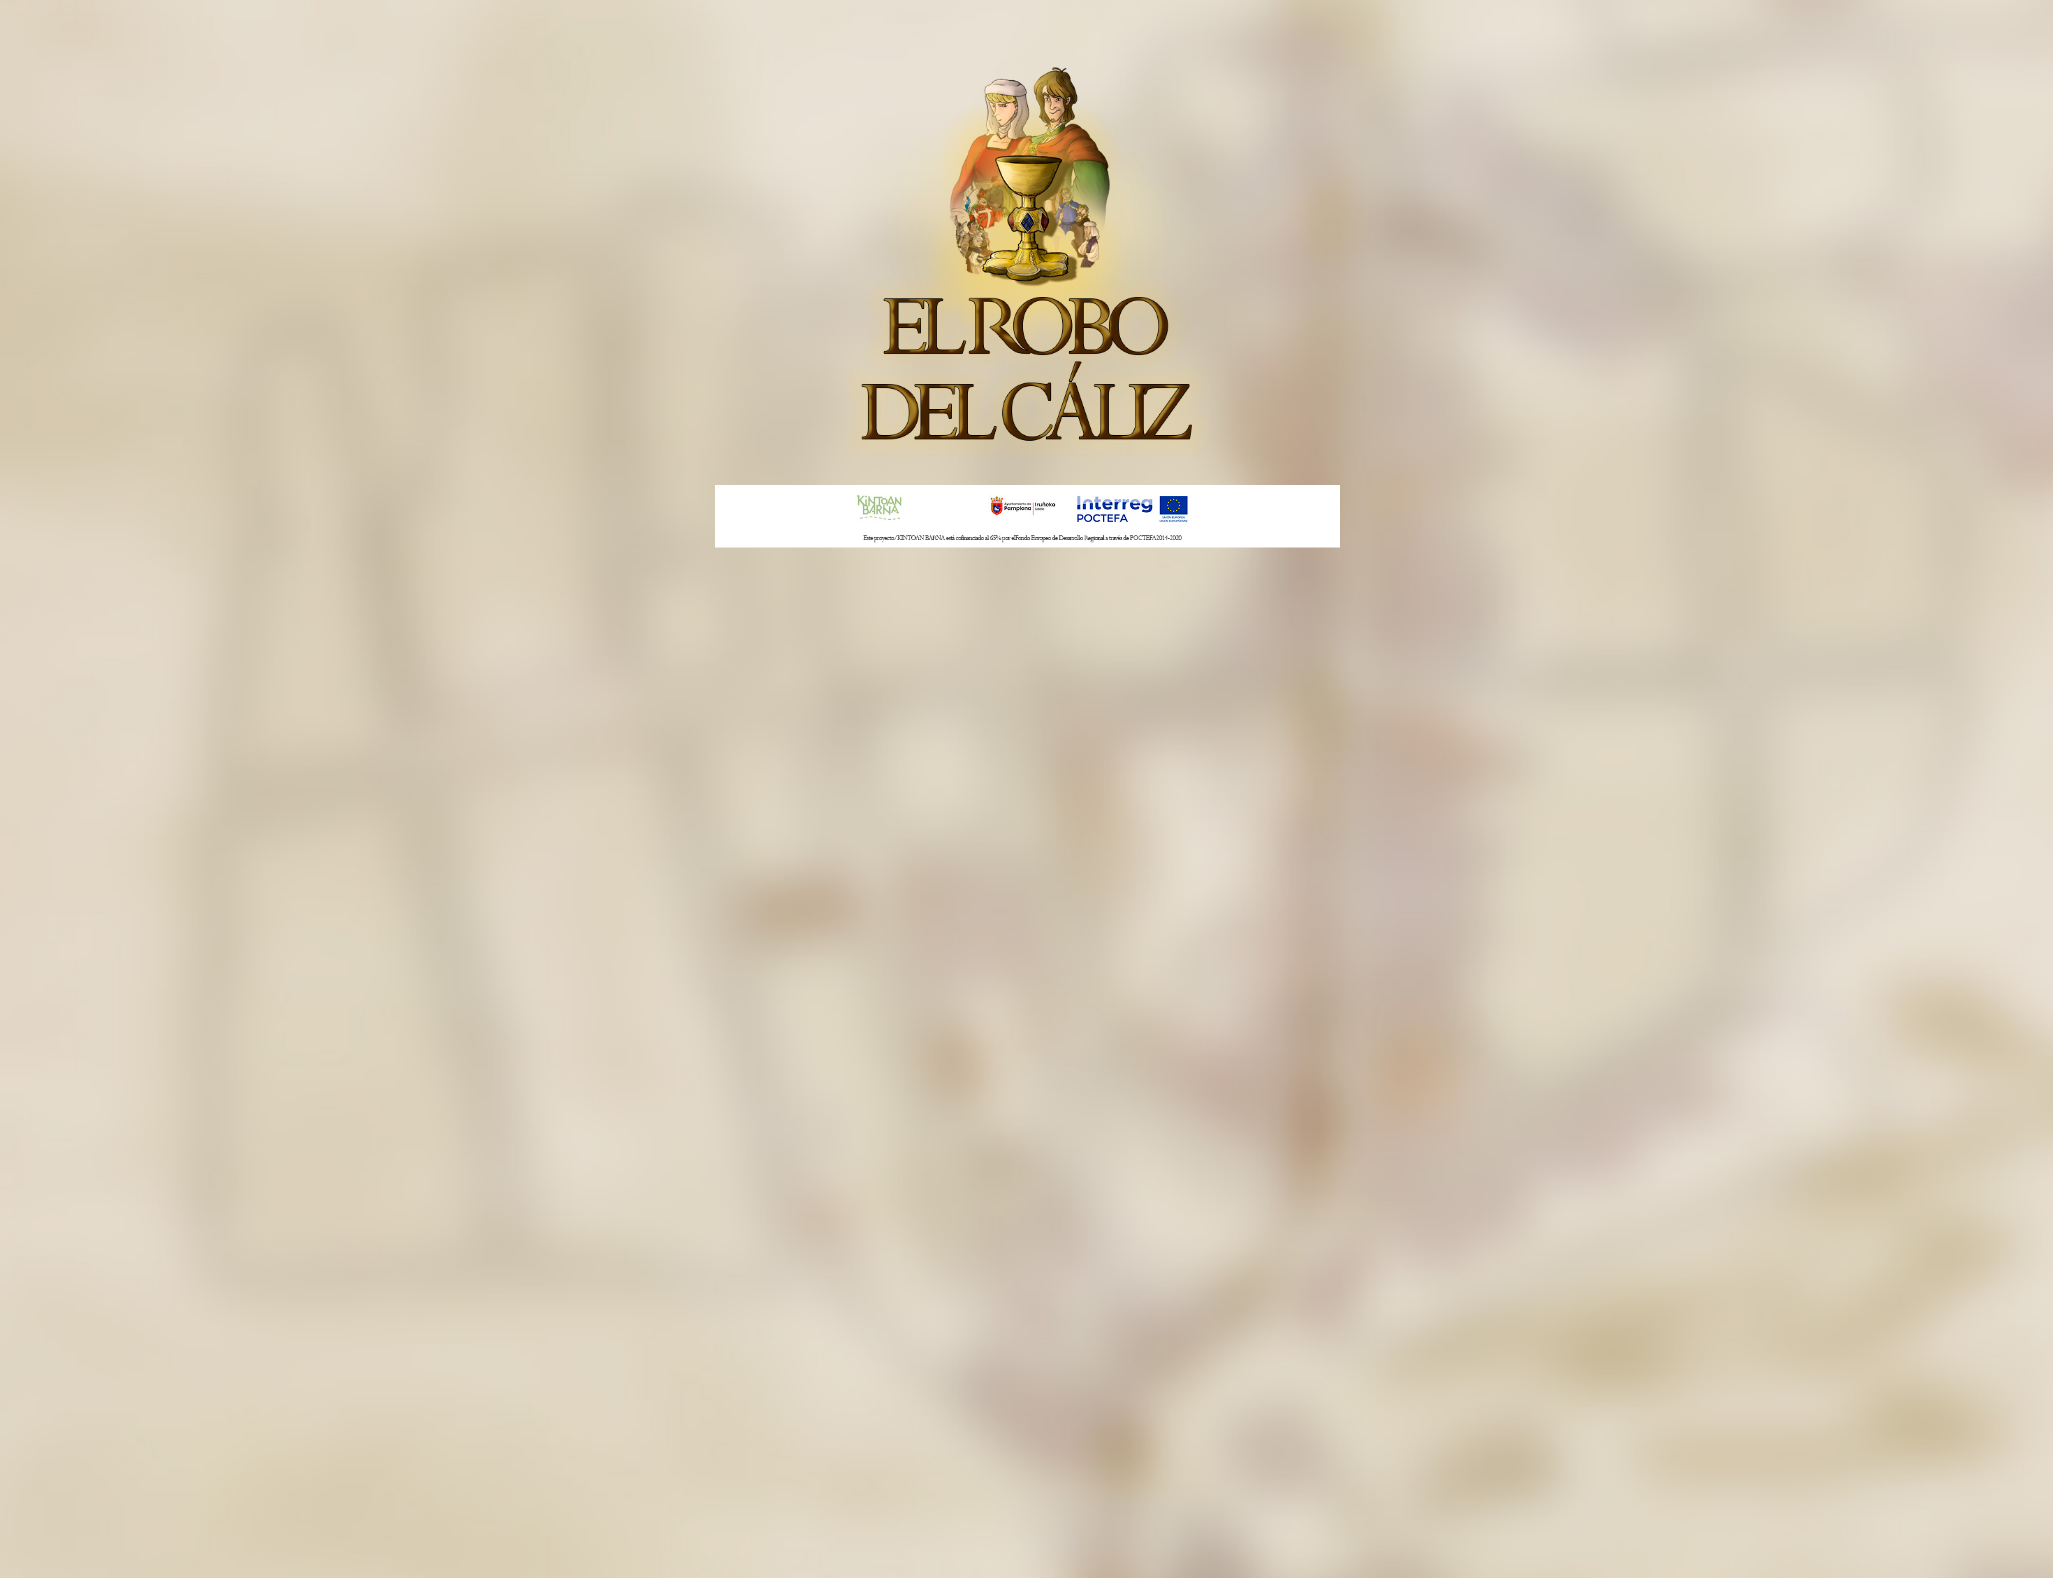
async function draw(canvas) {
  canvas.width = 2053
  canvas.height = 1578
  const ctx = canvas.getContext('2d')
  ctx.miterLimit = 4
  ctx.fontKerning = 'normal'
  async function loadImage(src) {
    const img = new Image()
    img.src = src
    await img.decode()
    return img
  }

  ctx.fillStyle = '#fff'
  ctx.fillRect(0, 0, 2053, 1578)
  ctx.drawImage(await loadImage('image0.png'), 0, 0, 2053, 1578)
  ctx.drawImage(await loadImage('image1.png'), 846, 67, 361, 389)
  ctx.drawImage(await loadImage('image2.png'), 715, 485, 625, 63)
}

draw(document.querySelector('canvas'))
